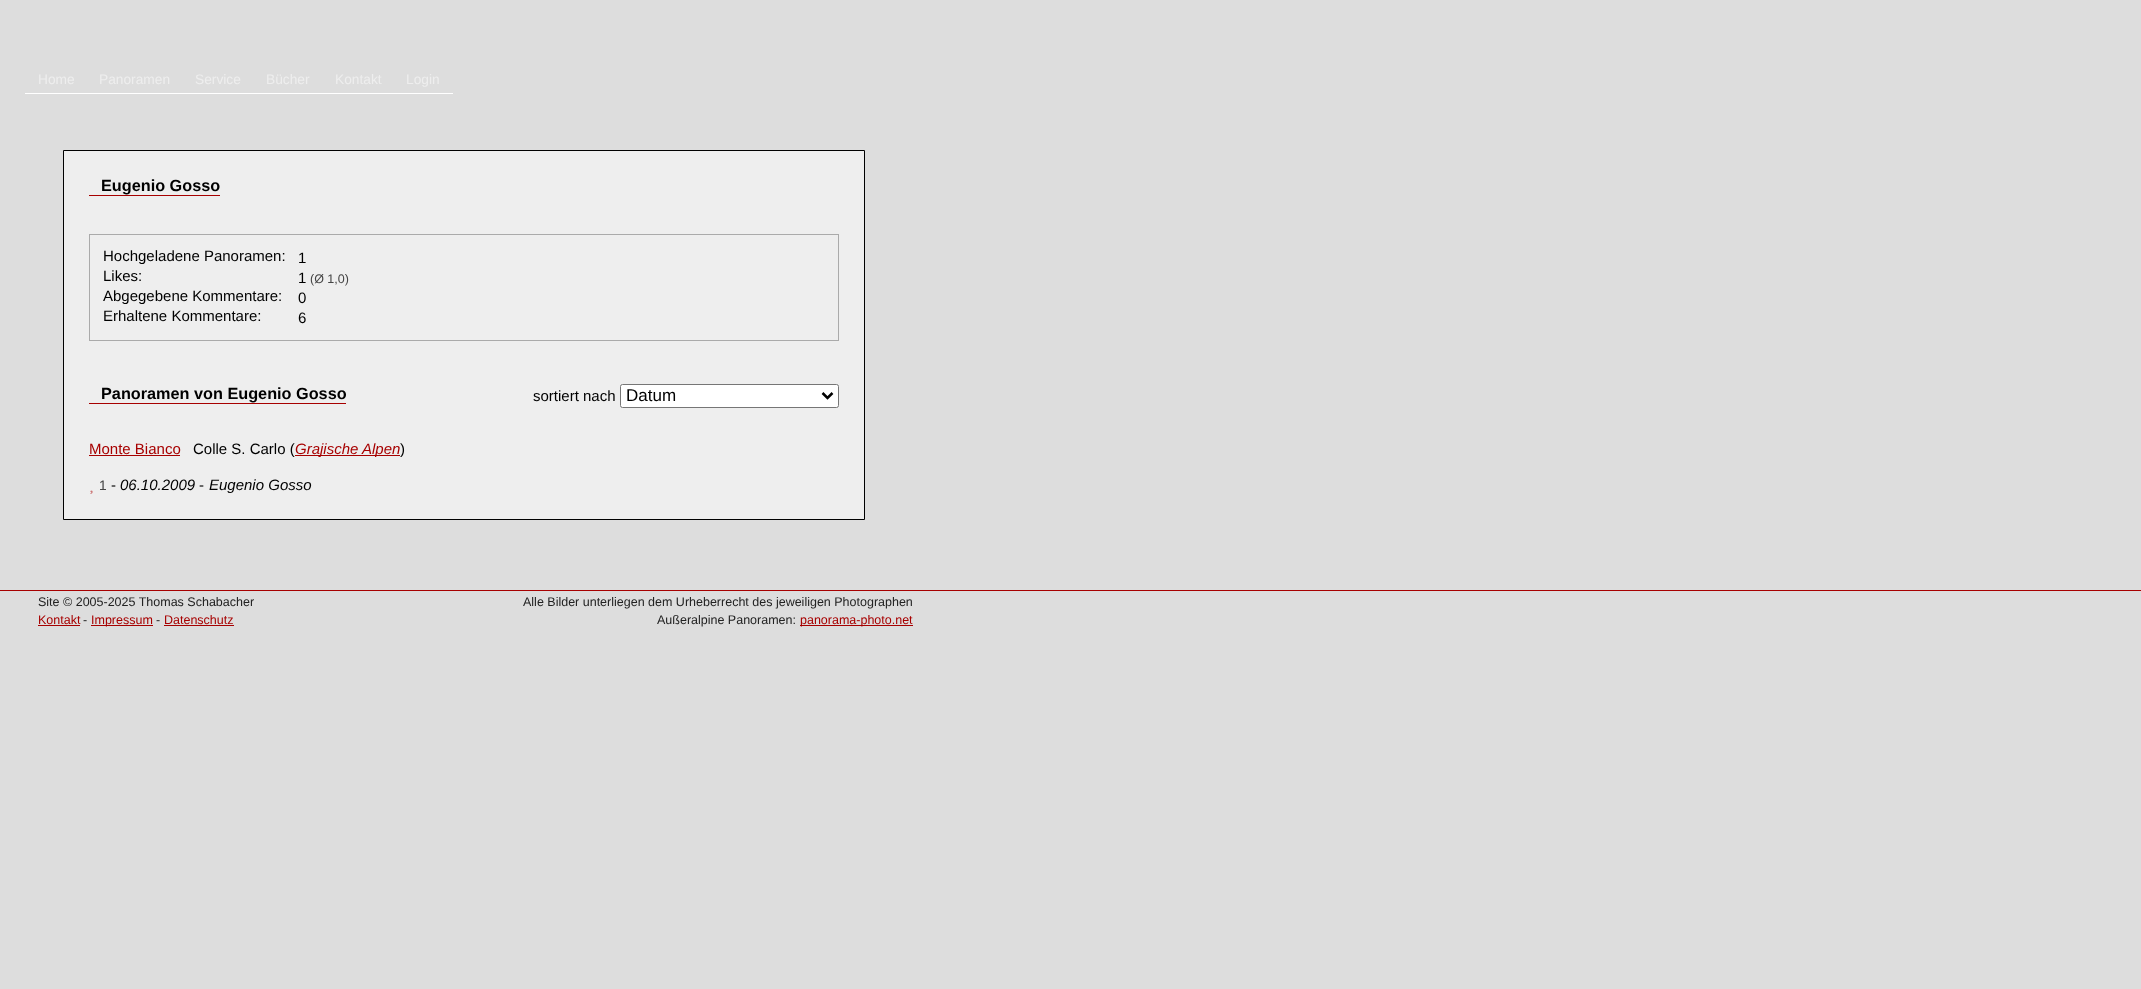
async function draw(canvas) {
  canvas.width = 2141
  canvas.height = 989
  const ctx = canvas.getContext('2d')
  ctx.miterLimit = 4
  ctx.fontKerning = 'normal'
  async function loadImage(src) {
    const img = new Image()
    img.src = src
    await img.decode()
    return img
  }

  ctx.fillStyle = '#ddd'
  ctx.fillRect(0, 0, 2141, 989)
  ctx.fillStyle = '#fff'
  ctx.fillRect(25, 93, 428, 1)
  ctx.font = '13.75px Liberation Sans'
  ctx.fillStyle = '#eee'
  ctx.fillText('Home', 38, 84)
  ctx.fillText('Panoramen', 99, 84)
  ctx.fillText('Service', 195, 84)
  ctx.fillText('Bücher', 266, 84)
  ctx.fillText('Kontakt', 335, 84)
  ctx.fillText('Login', 406, 84)
  ctx.beginPath()
  ctx.rect(63.5, 150.5, 801, 369)
  ctx.fill()
  ctx.strokeStyle = '#000'
  ctx.stroke()
  ctx.font = 'bold 16.25px Liberation Sans'
  ctx.fillStyle = '#000'
  ctx.fillText('Eugenio Gosso', 101, 191)
  ctx.fillStyle = '#a70000'
  ctx.fillRect(89, 195, 131, 1)
  ctx.strokeStyle = '#aaa'
  ctx.strokeRect(89.5, 234.5, 749, 106)
  ctx.font = '15px Liberation Sans'
  ctx.fillStyle = '#000'
  ctx.fillText('Hochgeladene Panoramen:', 103, 261)
  ctx.fillText('1', 298, 263)
  ctx.fillText('Likes:', 103, 281)
  ctx.fillText('1', 298, 283)
  ctx.font = '12.5px Liberation Sans'
  ctx.fillStyle = '#444'
  ctx.fillText('(Ø 1,0)', 310, 283)
  ctx.font = '15px Liberation Sans'
  ctx.fillStyle = '#000'
  ctx.fillText('Abgegebene Kommentare:', 103, 301)
  ctx.fillText('0', 298, 303)
  ctx.fillText('Erhaltene Kommentare:', 103, 321)
  ctx.fillText('6', 298, 323)
  ctx.font = 'bold 16.25px Liberation Sans'
  ctx.fillText('Panoramen von Eugenio Gosso', 101, 399)
  ctx.fillStyle = '#a70000'
  ctx.fillRect(89, 403, 257, 1)
  ctx.font = '15px Liberation Sans'
  ctx.fillStyle = '#000'
  ctx.fillText('sortiert nach', 533, 401)
  ctx.fillStyle = '#fff'
  ctx.beginPath()
  ctx.roundRect(620.5, 384.5, 218, 23, 2)
  ctx.fill()
  ctx.strokeStyle = '#767676'
  ctx.stroke()
  ctx.beginPath()
  ctx.moveTo(822.5, 393)
  ctx.lineTo(827.5, 398)
  ctx.lineTo(832.5, 393)
  ctx.strokeStyle = '#000'
  ctx.lineWidth = 2.5
  ctx.stroke()
  ctx.font = '17px Liberation Sans'
  ctx.fillStyle = '#000'
  ctx.fillText('Datum', 626, 401)
  ctx.font = '15px Liberation Sans'
  ctx.fillStyle = '#a70000'
  ctx.fillText('Monte Bianco', 89, 454)
  ctx.fillRect(89, 455, 91, 1)
  ctx.fillStyle = '#000'
  ctx.fillText('Colle S. Carlo (', 193, 454)
  ctx.fillStyle = '#a70000'
  ctx.fillRect(295, 455, 105, 1)
  ctx.font = 'italic 15px Liberation Sans'
  ctx.fillText('Grajische Alpen', 295, 454)
  ctx.font = '15px Liberation Sans'
  ctx.fillStyle = '#000'
  ctx.fillText(')', 400, 454)
  ctx.font = '13.75px Liberation Sans'
  ctx.fillStyle = '#444'
  ctx.fillText('1', 99, 490)
  ctx.drawImage(await loadImage('image0.png'), 90, 490, 3, 4)
  ctx.font = '15px Liberation Sans'
  ctx.fillStyle = '#000'
  ctx.fillText('-', 111, 490)
  ctx.font = 'italic 15px Liberation Sans'
  ctx.fillText('06.10.2009', 120, 490)
  ctx.font = '15px Liberation Sans'
  ctx.fillText('-', 199, 490)
  ctx.font = 'italic 15px Liberation Sans'
  ctx.fillText('Eugenio Gosso', 209, 490)
  ctx.fillStyle = '#a70000'
  ctx.fillRect(0, 590, 2141, 1)
  ctx.font = '12.5px Liberation Sans'
  ctx.fillStyle = '#222'
  ctx.fillText('Site © 2005-2025 Thomas Schabacher', 38, 606)
  ctx.fillText('Alle Bilder unterliegen dem Urheberrecht des jeweiligen Photographen', 523, 606)
  ctx.fillStyle = '#a70000'
  ctx.fillText('Kontakt', 38, 624)
  ctx.fillRect(38, 625, 42, 1)
  ctx.fillStyle = '#222'
  ctx.fillText('-', 83, 624)
  ctx.fillStyle = '#a70000'
  ctx.fillRect(91, 625, 62, 1)
  ctx.fillText('Impressum', 91, 624)
  ctx.fillStyle = '#222'
  ctx.fillText('-', 156, 624)
  ctx.fillStyle = '#a70000'
  ctx.fillText('Datenschutz', 164, 624)
  ctx.fillRect(164, 625, 70, 1)
  ctx.fillStyle = '#222'
  ctx.fillText('Außeralpine Panoramen:', 657, 624)
  ctx.fillStyle = '#a70000'
  ctx.fillRect(800, 625, 113, 1)
  ctx.fillText('panorama-photo.net', 800, 624)
}

draw(document.querySelector('canvas'))
